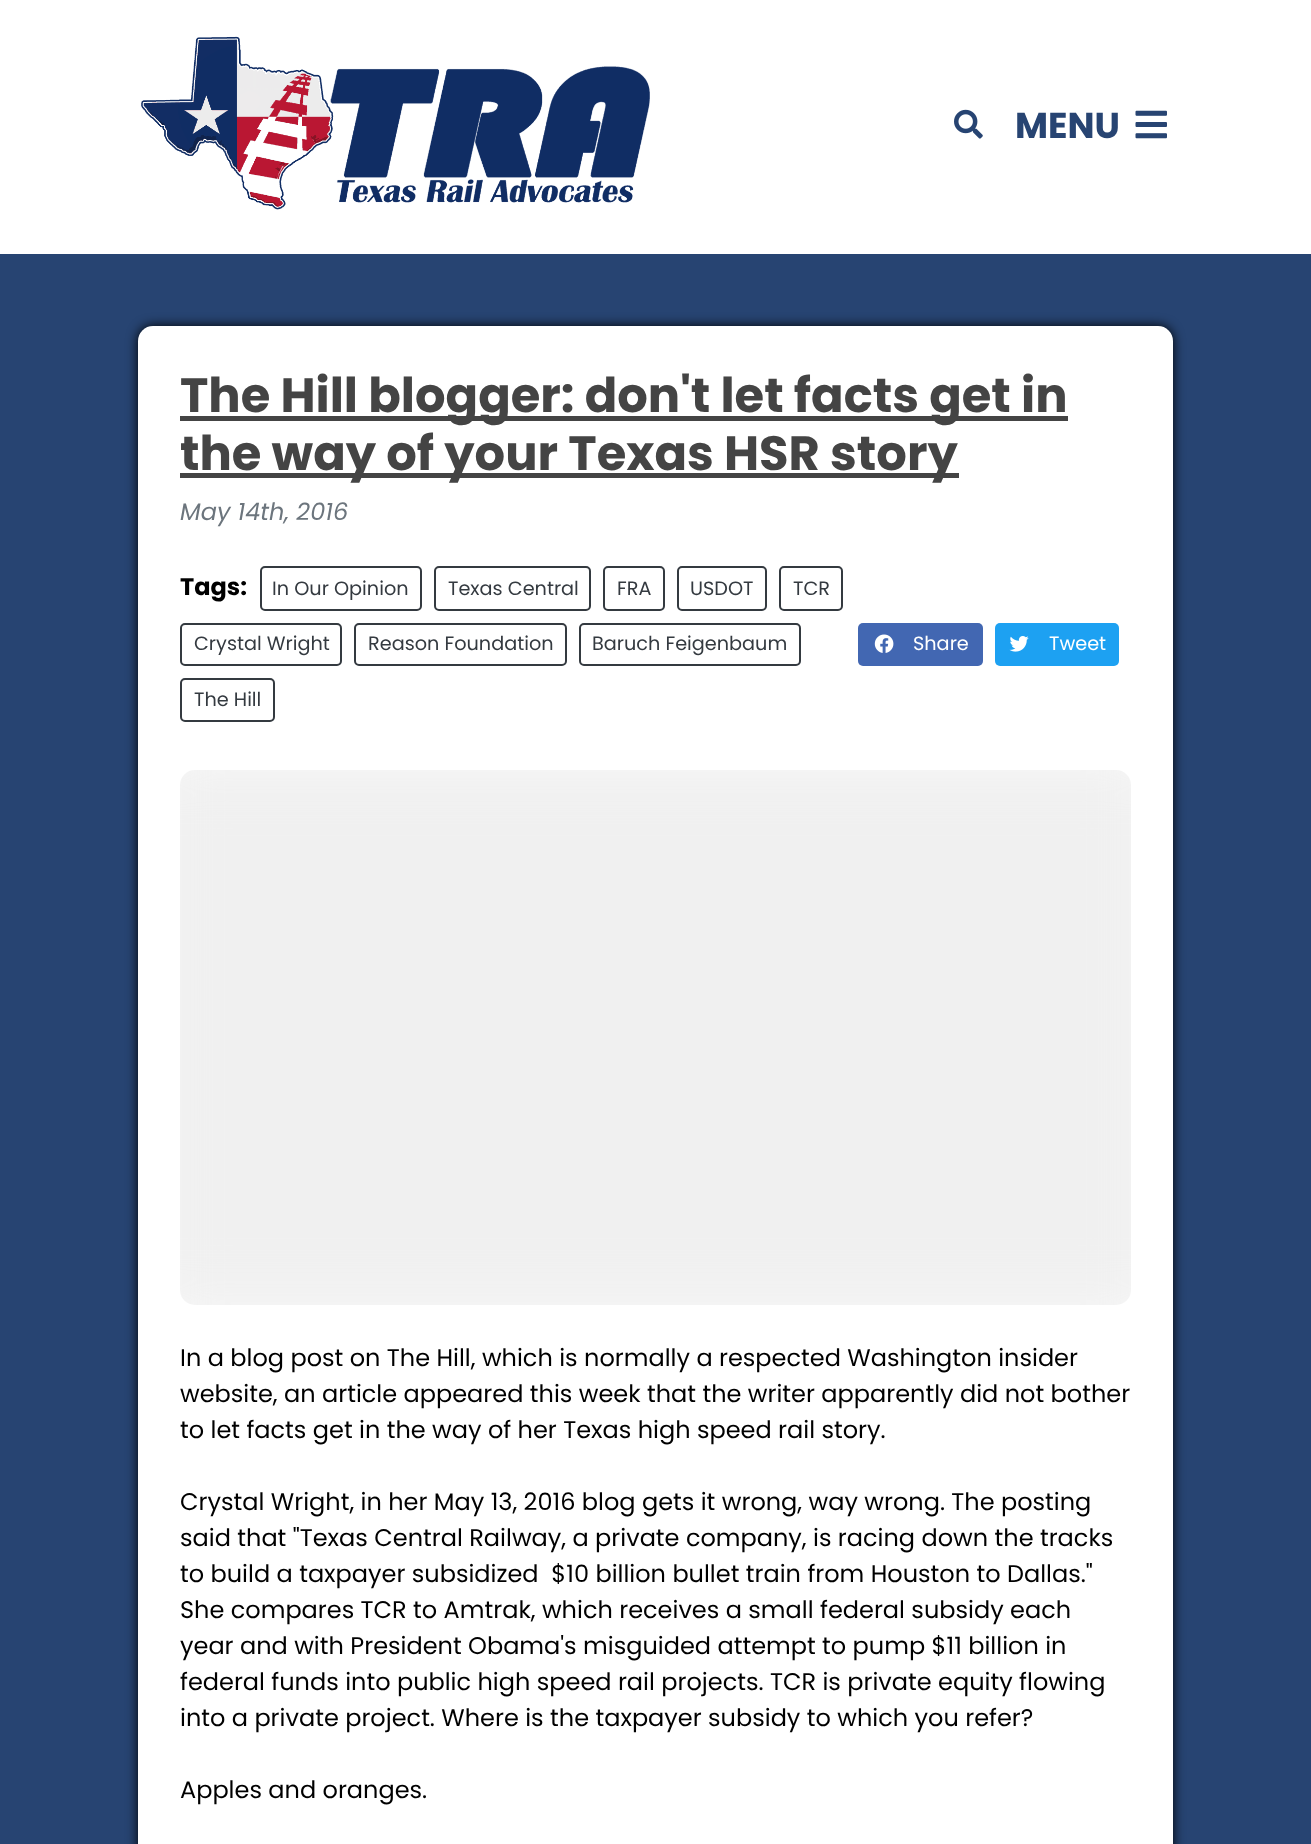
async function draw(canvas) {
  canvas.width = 1311
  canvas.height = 1844
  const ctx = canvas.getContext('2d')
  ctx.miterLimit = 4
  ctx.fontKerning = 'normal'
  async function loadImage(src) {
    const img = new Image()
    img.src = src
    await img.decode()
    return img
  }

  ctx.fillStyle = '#274472'
  ctx.fillRect(0, 0, 1311, 1844)
  ctx.fillStyle = '#fff'
  ctx.fillRect(0, 0, 1311, 254)
  ctx.drawImage(await loadImage('image0.png'), 141, 36, 509, 174)
  ctx.drawImage(await loadImage('image1.png'), 954, 109, 29, 30)
  ctx.font = 'bold 36px Poppins'
  ctx.fillStyle = '#274472'
  ctx.fillText('MENU', 1015, 138)
  ctx.drawImage(await loadImage('image2.png'), 1135, 110, 32, 29)
  ctx.fillStyle = '#000'
  ctx.filter = 'blur(6px)'
  ctx.beginPath()
  ctx.roundRect(138, 326, 1035, 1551, 15)
  ctx.fill()
  ctx.filter = 'none'
  ctx.fillStyle = '#fff'
  ctx.beginPath()
  ctx.roundRect(138, 326, 1035, 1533, 15)
  ctx.fill()
  ctx.fillStyle = '#444'
  ctx.fillRect(180, 416, 888, 5)
  ctx.font = 'bold 48px Poppins'
  ctx.fillText('The Hill blogger: don\'t let facts get in', 180, 412)
  ctx.fillRect(180, 473, 779, 5)
  ctx.fillText('the way of your Texas HSR story', 180, 470)
  ctx.font = 'italic 24px Poppins'
  ctx.fillStyle = '#6c757d'
  ctx.fillText('May 14th, 2016', 180, 520)
  ctx.font = 'bold 24px Poppins'
  ctx.fillStyle = '#000'
  ctx.fillText('Tags:', 180, 595)
  ctx.beginPath()
  ctx.roundRect(261, 567, 160, 43, 4)
  ctx.strokeStyle = '#343a40'
  ctx.lineWidth = 2
  ctx.stroke()
  ctx.font = '19.25px Poppins'
  ctx.fillStyle = '#343a40'
  ctx.fillText('In Our Opinion', 272, 595)
  ctx.beginPath()
  ctx.roundRect(435, 567, 155, 43, 4)
  ctx.stroke()
  ctx.fillText('Texas Central', 448, 595)
  ctx.beginPath()
  ctx.roundRect(604, 567, 60, 43, 4)
  ctx.stroke()
  ctx.fillText('FRA', 617, 595)
  ctx.beginPath()
  ctx.roundRect(678, 567, 88, 43, 4)
  ctx.stroke()
  ctx.fillText('USDOT', 690, 595)
  ctx.beginPath()
  ctx.roundRect(780, 567, 62, 43, 4)
  ctx.stroke()
  ctx.fillText('TCR', 793, 595)
  ctx.beginPath()
  ctx.roundRect(181, 624, 160, 41, 4)
  ctx.stroke()
  ctx.fillText('Crystal Wright', 194, 650)
  ctx.beginPath()
  ctx.roundRect(355, 624, 211, 41, 4)
  ctx.stroke()
  ctx.fillText('Reason Foundation', 368, 650)
  ctx.beginPath()
  ctx.roundRect(580, 624, 220, 41, 4)
  ctx.stroke()
  ctx.fillText('Baruch Feigenbaum', 592, 650)
  ctx.beginPath()
  ctx.roundRect(181, 679, 93, 42, 4)
  ctx.stroke()
  ctx.fillText('The Hill', 194, 706)
  ctx.fillStyle = '#4267b2'
  ctx.beginPath()
  ctx.roundRect(858, 623, 125, 43, 5)
  ctx.fill()
  ctx.drawImage(await loadImage('image3.png'), 874, 634, 20, 19)
  ctx.fillStyle = '#fff'
  ctx.fillText('Share', 913, 650)
  ctx.fillStyle = '#1da1f2'
  ctx.beginPath()
  ctx.roundRect(995, 623, 124, 43, 5)
  ctx.fill()
  ctx.drawImage(await loadImage('image4.png'), 1009, 636, 20, 16)
  ctx.fillStyle = '#fff'
  ctx.fillText('Tweet', 1049, 650)
  ctx.save()
  ctx.beginPath()
  ctx.roundRect(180, 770, 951, 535, 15)
  ctx.clip()
  ctx.fillStyle = '#f0f0f0'
  ctx.filter = 'blur(39px)'
  ctx.beginPath()
  ctx.roundRect(132, 743, 1047, 588, 17)
  ctx.fill()
  ctx.filter = 'none'
  ctx.restore()
  ctx.font = '24px Poppins'
  ctx.fillStyle = '#000'
  ctx.fillText('In a blog post on The Hill, which is normally a respected Washington insider', 180, 1366)
  ctx.fillText('website, an article appeared this week that the writer apparently did not bother', 180, 1402)
  ctx.fillText('to let facts get in the way of her Texas high speed rail story.', 180, 1438)
  ctx.fillText('Crystal Wright, in her May 13, 2016 blog gets it wrong, way wrong. The posting', 180, 1510)
  ctx.fillText('said that "Texas Central Railway, a private company, is racing down the tracks', 180, 1546)
  ctx.fillText('to build a taxpayer subsidized  $10 billion bullet train from Houston to Dallas."', 180, 1582)
  ctx.fillText('She compares TCR to Amtrak, which receives a small federal subsidy each', 180, 1618)
  ctx.fillText('year and with President Obama\'s misguided attempt to pump $11 billion in', 180, 1654)
  ctx.fillText('federal funds into public high speed rail projects. TCR is private equity flowing', 180, 1690)
  ctx.fillText('into a private project. Where is the taxpayer subsidy to which you refer?', 180, 1726)
  ctx.fillText('Apples and oranges.', 180, 1798)
}

draw(document.querySelector('canvas'))
